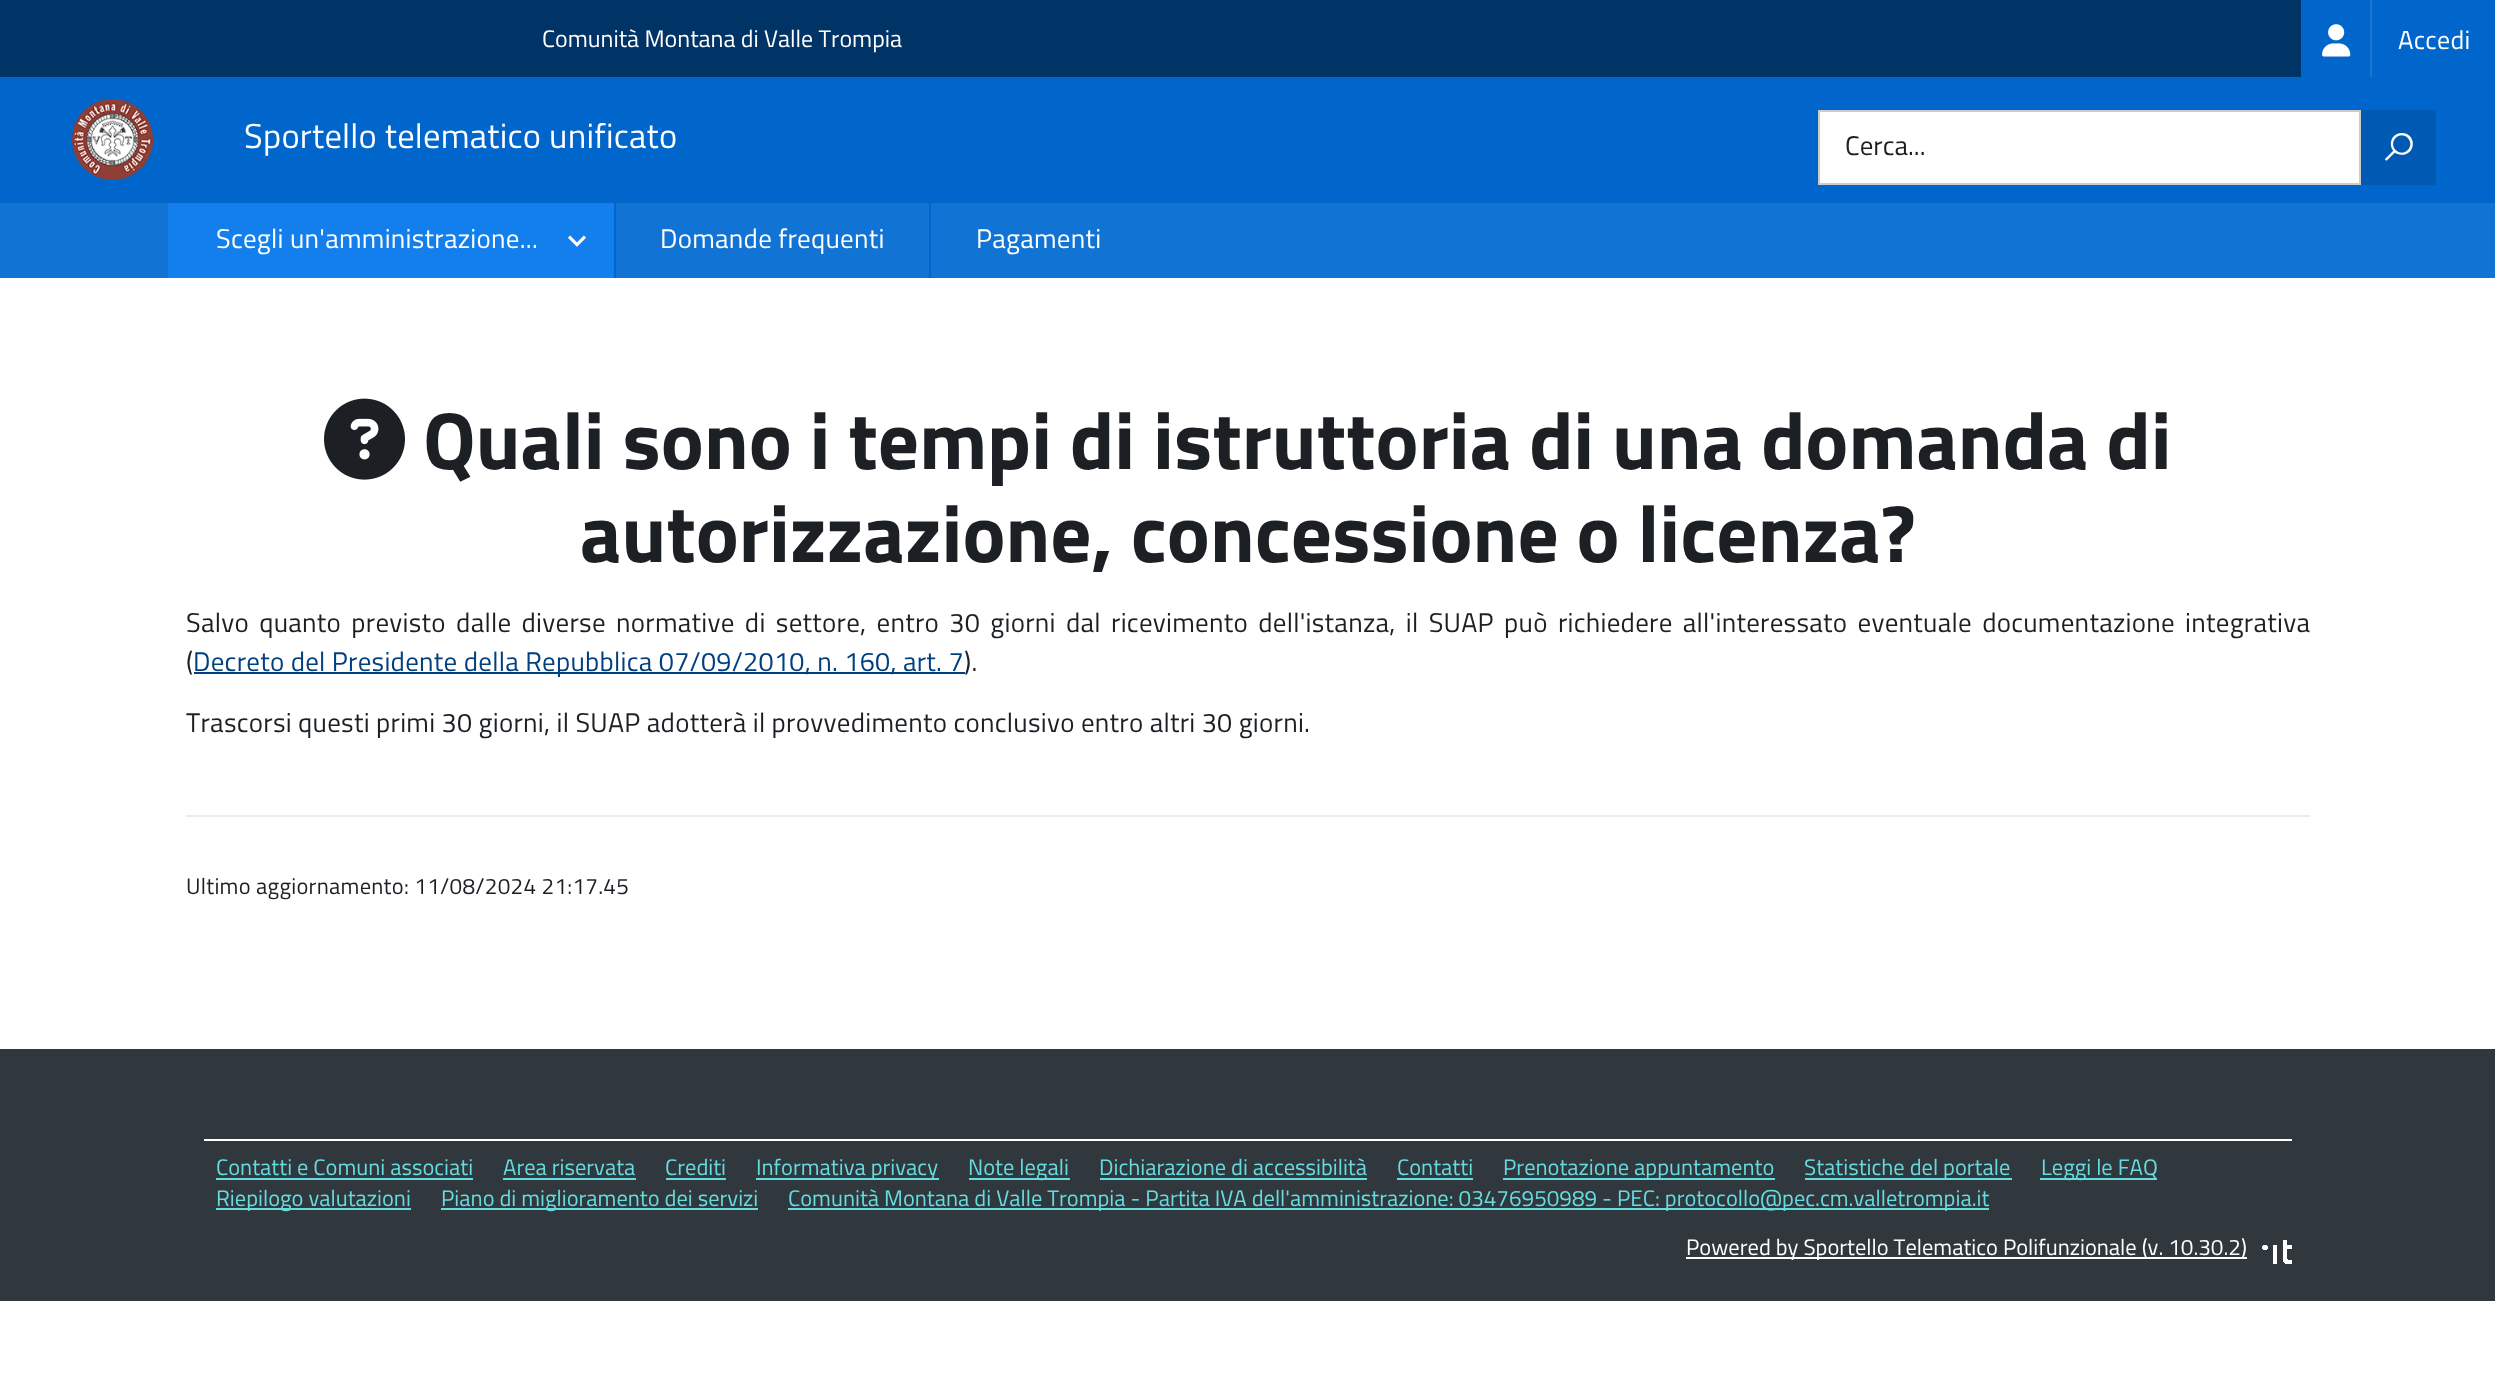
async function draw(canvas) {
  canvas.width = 2495
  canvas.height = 1384
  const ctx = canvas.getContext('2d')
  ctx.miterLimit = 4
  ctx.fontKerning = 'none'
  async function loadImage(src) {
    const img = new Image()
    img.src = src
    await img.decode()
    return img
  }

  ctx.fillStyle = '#fff'
  ctx.fillRect(0, 0, 2495, 1384)
  ctx.fillStyle = '#036'
  ctx.fillRect(0, 0, 2301, 77)
  ctx.font = '24px Titillium Web'
  ctx.fillStyle = '#fff'
  ctx.fillText('Comunità Montana di Valle Trompia', 542, 47)
  ctx.fillStyle = '#06c'
  ctx.fillRect(2301, 0, 69, 77)
  ctx.fillStyle = '#1a75d1'
  ctx.fillRect(2370, 0, 2, 77)
  ctx.drawImage(await loadImage('image0.png'), 2322, 24, 29, 33)
  ctx.fillStyle = '#06c'
  ctx.fillRect(2372, 0, 123, 77)
  ctx.letterSpacing = '0.27px'
  ctx.font = '26px Titillium Web'
  ctx.fillStyle = '#fff'
  ctx.fillText('Accedi', 2398, 49)
  ctx.fillStyle = '#06c'
  ctx.fillRect(0, 77, 2495, 126)
  ctx.drawImage(await loadImage('image1.png'), 72, 98, 81, 82)
  ctx.letterSpacing = '0.25px'
  ctx.font = '34.5px Titillium Web'
  ctx.fillStyle = '#fff'
  ctx.fillText('Sportello telematico unificato', 244, 148)
  ctx.beginPath()
  ctx.rect(1819, 111, 541, 73)
  ctx.fill()
  ctx.strokeStyle = '#ccc'
  ctx.lineWidth = 2
  ctx.stroke()
  ctx.fillStyle = '#0059b3'
  ctx.fillRect(2361, 110, 75, 75)
  ctx.letterSpacing = '0px'
  ctx.font = 'bold 27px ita'
  ctx.fillStyle = '#fff'
  ctx.fillText('🔍', 2385, 159)
  ctx.font = '27px Titillium Web'
  ctx.fillStyle = '#1c2024'
  ctx.fillText('Cerca...', 1845, 155)
  ctx.fillStyle = '#1173d4'
  ctx.fillRect(0, 203, 2495, 75)
  ctx.fillStyle = '#06c'
  ctx.fillRect(614, 203, 2, 75)
  ctx.fillStyle = '#137fec'
  ctx.fillRect(168, 203, 446, 75)
  ctx.letterSpacing = '0.27px'
  ctx.fillStyle = '#fff'
  ctx.fillText('Scegli un\'amministrazione...', 216, 248)
  ctx.font = '18px ita'
  ctx.fillText('⏶', 568, 249)
  ctx.fillStyle = '#06c'
  ctx.fillRect(929, 203, 2, 75)
  ctx.font = '27px Titillium Web'
  ctx.fillStyle = '#fff'
  ctx.fillText('Domande frequenti', 660, 248)
  ctx.fillText('Pagamenti', 976, 248)
  ctx.drawImage(await loadImage('image2.png'), 324, 398, 81, 82)
  ctx.letterSpacing = '0px'
  ctx.font = 'bold 81px Titillium Web'
  ctx.fillStyle = '#1c2024'
  ctx.fillText('Quali sono i tempi di istruttoria di una domanda di', 423, 469)
  ctx.fillText('autorizzazione, concessione o licenza?', 580, 562)
  ctx.letterSpacing = '0.27px'
  ctx.wordSpacing = '4px'
  ctx.font = '27px Titillium Web'
  ctx.fillText('Salvo quanto previsto dalle diverse normative di settore, entro 30 giorni dal ricevimento dell\'istanza, il SUAP può richiedere all\'interessato eventuale documentazione integrativa', 186, 632)
  ctx.wordSpacing = '0px'
  ctx.fillText('(', 186, 671)
  ctx.fillStyle = '#004080'
  ctx.fillRect(194, 672, 771, 2)
  ctx.fillText('Decreto del Presidente della Repubblica 07/09/2010, n. 160, art. 7', 193, 671)
  ctx.fillStyle = '#1c2024'
  ctx.fillText(').', 964, 671)
  ctx.fillText('Trascorsi questi primi 30 giorni, il SUAP adotterà il provvedimento conclusivo entro altri 30 giorni.', 186, 732)
  ctx.fillStyle = '#ececec'
  ctx.fillRect(186, 815, 2124, 2)
  ctx.font = '22.5px Titillium Web'
  ctx.fillStyle = '#1c2024'
  ctx.fillText('Ultimo aggiornamento: 11/08/2024 21:17.45', 186, 894)
  ctx.fillStyle = '#30373d'
  ctx.fillRect(0, 1049, 2495, 252)
  ctx.fillStyle = '#fff'
  ctx.fillRect(204, 1139, 2088, 2)
  ctx.letterSpacing = '0px'
  ctx.fillStyle = '#65dcdf'
  ctx.fillText('Contatti e Comuni associati', 216, 1175)
  ctx.fillRect(216, 1178, 257, 2)
  ctx.fillText('Area riservata', 503, 1175)
  ctx.fillRect(503, 1178, 133, 2)
  ctx.fillText('Crediti', 665, 1175)
  ctx.fillRect(666, 1178, 60, 2)
  ctx.fillRect(756, 1178, 183, 2)
  ctx.fillText('Informativa privacy', 756, 1175)
  ctx.fillRect(969, 1178, 101, 2)
  ctx.fillText('Note legali', 968, 1175)
  ctx.fillText('Dichiarazione di accessibilità', 1099, 1175)
  ctx.fillRect(1100, 1178, 267, 2)
  ctx.fillText('Contatti', 1397, 1175)
  ctx.fillRect(1397, 1178, 76, 2)
  ctx.fillRect(1503, 1178, 272, 2)
  ctx.fillText('Prenotazione appuntamento', 1503, 1175)
  ctx.fillRect(1805, 1178, 207, 2)
  ctx.fillText('Statistiche del portale', 1804, 1175)
  ctx.fillRect(2040, 1178, 117, 2)
  ctx.fillText('Leggi le FAQ', 2041, 1175)
  ctx.fillRect(216, 1208, 195, 2)
  ctx.fillText('Riepilogo valutazioni', 216, 1206)
  ctx.fillRect(441, 1208, 317, 2)
  ctx.fillText('Piano di miglioramento dei servizi', 441, 1206)
  ctx.fillRect(788, 1208, 1201, 2)
  ctx.fillText('Comunità Montana di Valle Trompia - Partita IVA dell\'amministrazione: 03476950989 - PEC: protocollo@pec.cm.valletrompia.it', 788, 1206)
  ctx.fillStyle = '#fff'
  ctx.fillRect(1686, 1257, 561, 2)
  ctx.fillText('Powered by Sportello Telematico Polifunzionale (v. 10.30.2)', 1686, 1255)
  ctx.drawImage(await loadImage('image3.png'), 2262, 1240, 30, 24)
}

draw(document.querySelector('canvas'))
